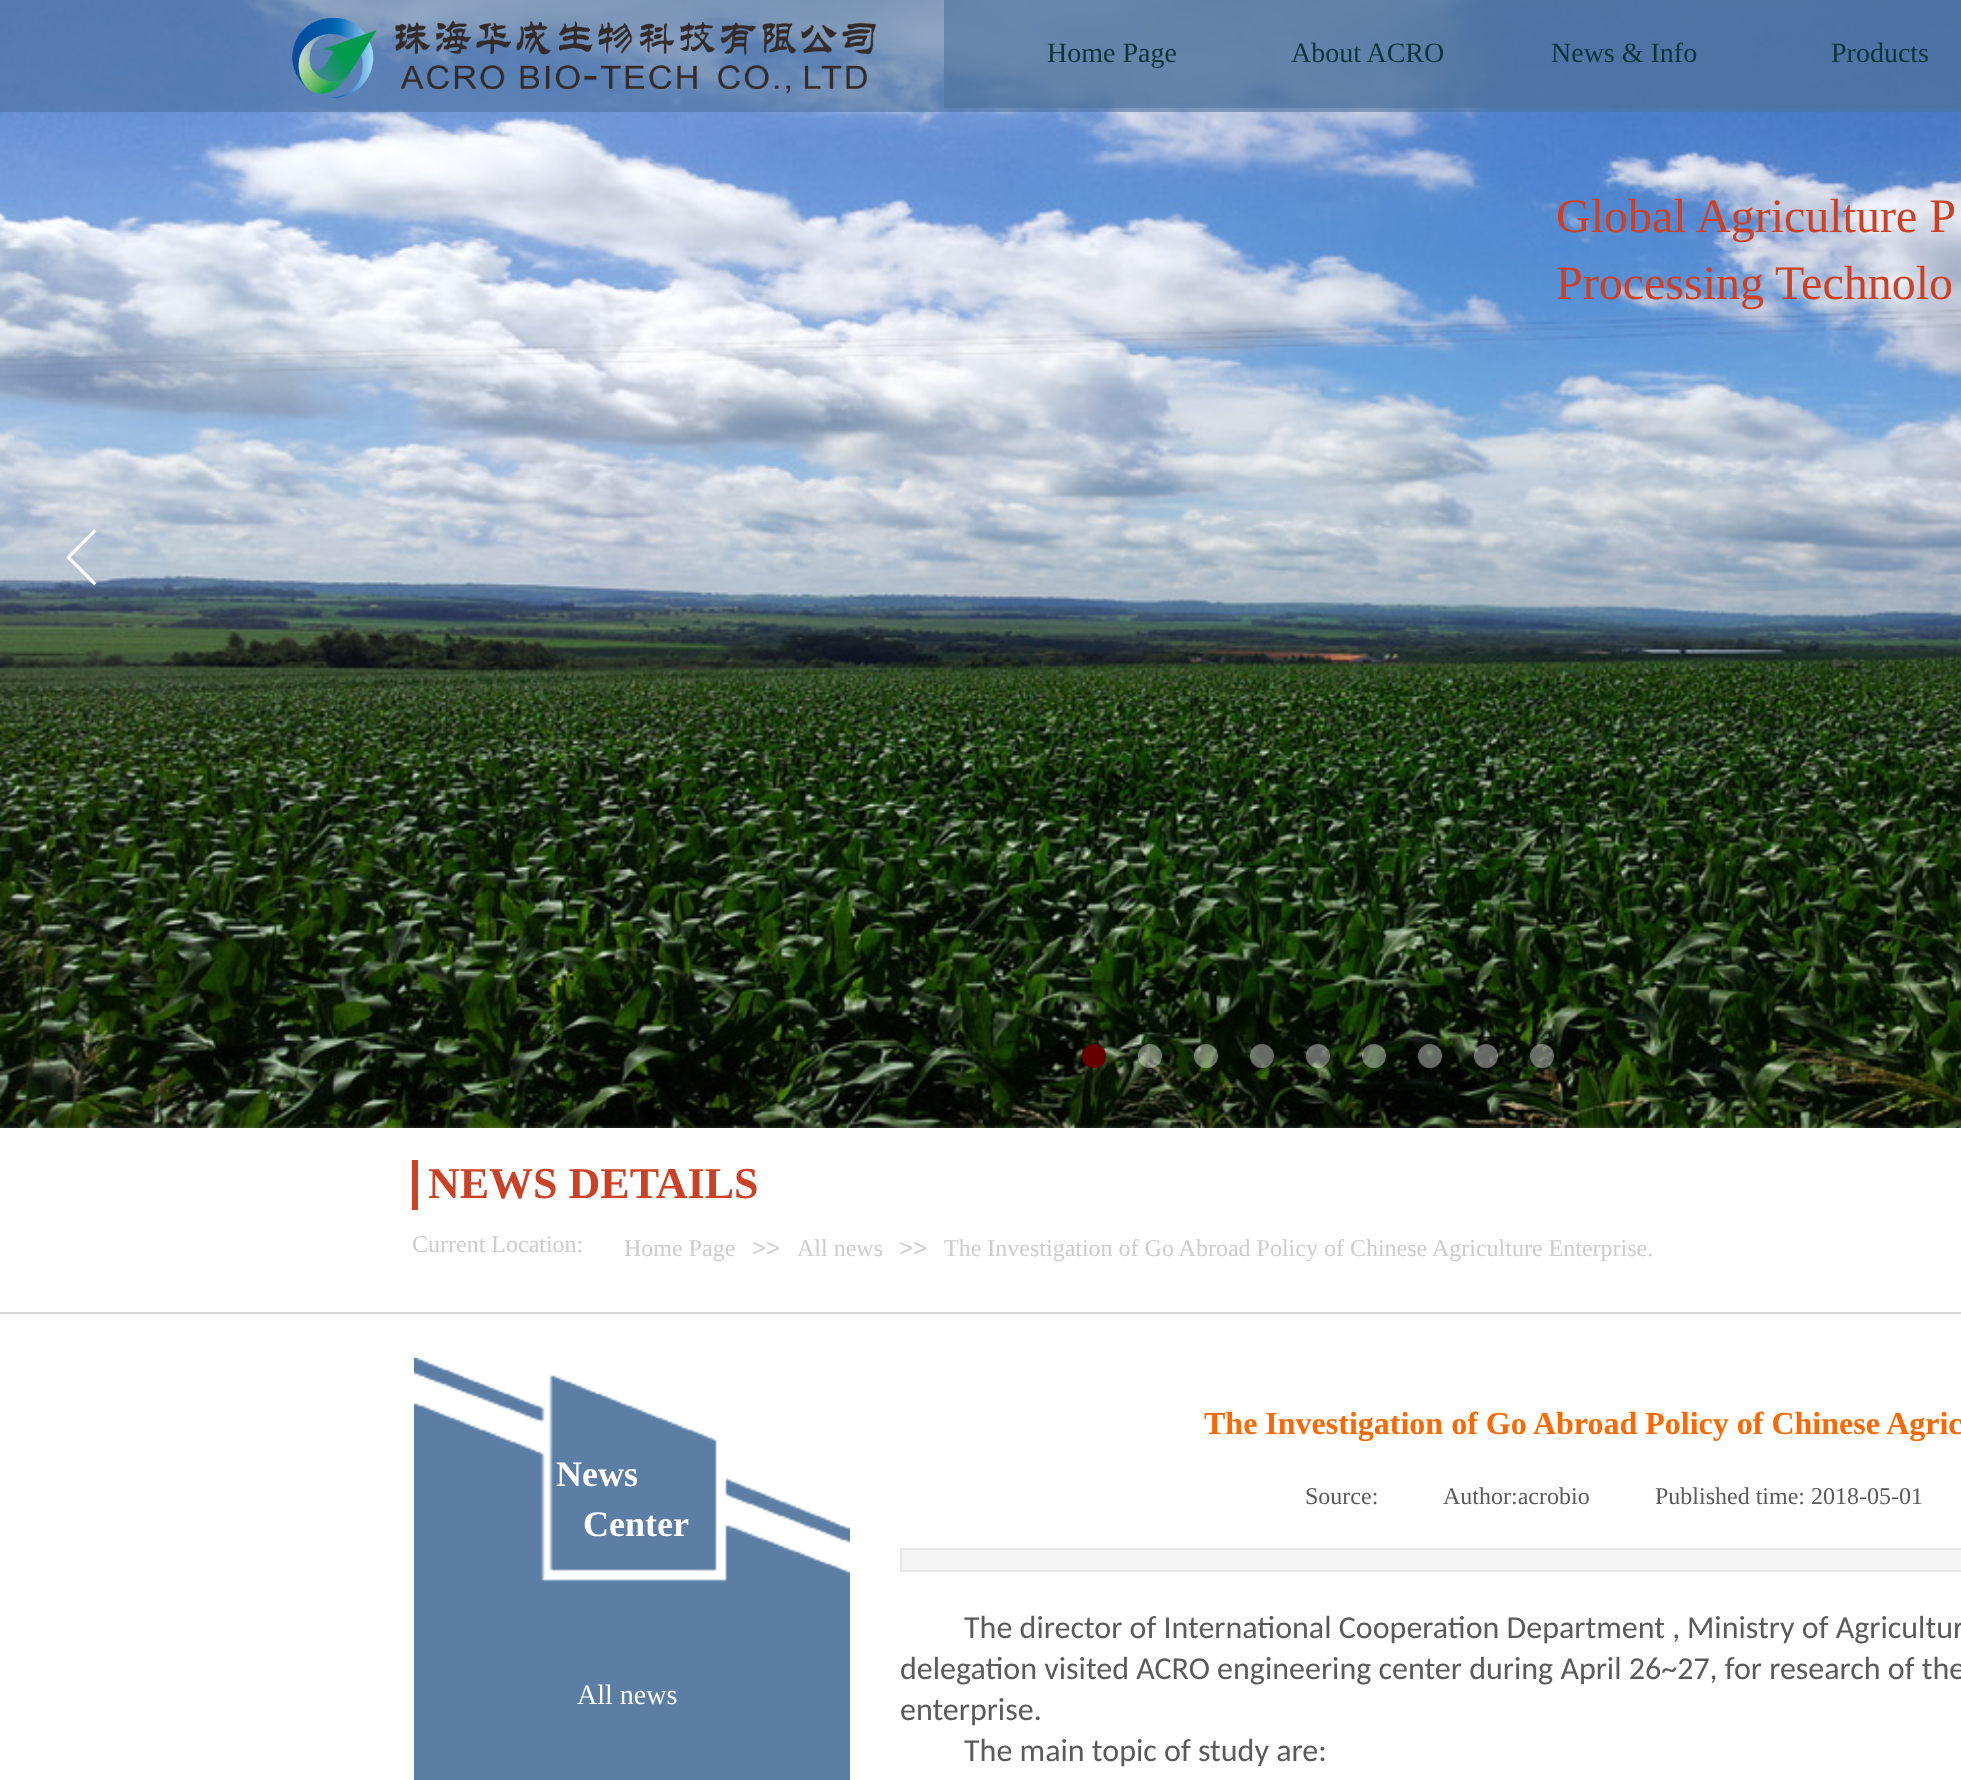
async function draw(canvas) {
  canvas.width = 1961
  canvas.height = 1780
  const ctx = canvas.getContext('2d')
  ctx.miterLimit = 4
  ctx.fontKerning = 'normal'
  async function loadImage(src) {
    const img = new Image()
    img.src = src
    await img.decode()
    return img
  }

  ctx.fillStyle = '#fff'
  ctx.fillRect(0, 0, 1961, 1780)
  ctx.drawImage(await loadImage('image1.png'), 0, 0, 1961, 1128)
  ctx.fillStyle = '#4e739e99'
  ctx.fillRect(0, 0, 1961, 112)
  ctx.drawImage(await loadImage('image0.png'), 292, 18, 584, 80)
  ctx.fillRect(944, 0, 1017, 108)
  ctx.font = '28px Liberation Serif'
  ctx.fillStyle = '#0c343d'
  ctx.fillText('Home Page', 1047, 62)
  ctx.fillText('About ACRO', 1291, 62)
  ctx.fillText('News & Info', 1551, 62)
  ctx.fillText('Products', 1831, 62)
  ctx.drawImage(await loadImage('image2.png'), 66, 529, 31, 57)
  ctx.fillStyle = '#600'
  ctx.beginPath()
  ctx.arc(1094, 1056, 12, 0, 2 * Math.PI)
  ctx.fill()
  ctx.fillStyle = '#ffffff66'
  ctx.beginPath()
  ctx.arc(1150, 1056, 12, 0, 2 * Math.PI)
  ctx.fill()
  ctx.beginPath()
  ctx.arc(1206, 1056, 12, 0, 2 * Math.PI)
  ctx.fill()
  ctx.beginPath()
  ctx.arc(1262, 1056, 12, 0, 2 * Math.PI)
  ctx.fill()
  ctx.beginPath()
  ctx.arc(1318, 1056, 12, 0, 2 * Math.PI)
  ctx.fill()
  ctx.beginPath()
  ctx.arc(1374, 1056, 12, 0, 2 * Math.PI)
  ctx.fill()
  ctx.beginPath()
  ctx.arc(1430, 1056, 12, 0, 2 * Math.PI)
  ctx.fill()
  ctx.beginPath()
  ctx.arc(1486, 1056, 12, 0, 2 * Math.PI)
  ctx.fill()
  ctx.beginPath()
  ctx.arc(1542, 1056, 12, 0, 2 * Math.PI)
  ctx.fill()
  ctx.font = '48px Liberation Serif'
  ctx.fillStyle = '#cc4125'
  ctx.fillText('Global Agriculture P', 1556, 232)
  ctx.fillText('Processing Technolo', 1556, 299)
  ctx.fillRect(412, 1160, 6, 50)
  ctx.font = 'bold 44px Liberation Serif'
  ctx.fillText('NEWS DETAILS', 428, 1198)
  ctx.font = '24px Liberation Serif'
  ctx.fillStyle = '#ccc'
  ctx.fillText('Current Location:', 412, 1252)
  ctx.fillText('Home Page', 624, 1256)
  ctx.font = '24px Liberation Sans'
  ctx.fillText('>>', 752, 1256)
  ctx.font = '24px Liberation Serif'
  ctx.fillText('All news', 797, 1256)
  ctx.font = '24px Liberation Sans'
  ctx.fillText('>>', 899, 1256)
  ctx.font = '24px Liberation Serif'
  ctx.fillText('The Investigation of Go Abroad Policy of Chinese Agriculture Enterprise.', 944, 1256)
  ctx.fillStyle = '#d9d9d9'
  ctx.fillRect(0, 1312, 1961, 2)
  ctx.drawImage(await loadImage('image3.png'), 414, 1358, 436, 422)
  ctx.font = 'bold 32px Liberation Serif'
  ctx.fillStyle = '#fc6701'
  ctx.fillText('The Investigation of Go Abroad Policy of Chinese Agric', 1204, 1434)
  ctx.font = '24px Liberation Serif'
  ctx.fillStyle = '#5a5a5a'
  ctx.fillText('Source:', 1305, 1504)
  ctx.fillText('Author:acrobio', 1443, 1504)
  ctx.fillText('Published time: 2018-05-01', 1655, 1504)
  ctx.fillStyle = '#f5f5f5'
  ctx.beginPath()
  ctx.rect(901, 1549, 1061, 22)
  ctx.fill()
  ctx.strokeStyle = '#e5e5e5'
  ctx.lineWidth = 2
  ctx.stroke()
  ctx.font = '32px Carlito'
  ctx.fillStyle = '#5a5a5a'
  ctx.fillText('The director of International Cooperation Department ,', 964, 1638)
  ctx.fillText('Ministry of Agricultur', 1687, 1638)
  ctx.fillText('delegation visited ACRO engineering center during April 26~27, for research of the', 900, 1679)
  ctx.fillText('enterprise.', 900, 1720)
  ctx.fillText('The main topic of study are:', 964, 1761)
  ctx.font = 'bold 36px Liberation Serif'
  ctx.fillStyle = '#fff'
  ctx.fillText('News', 556, 1486)
  ctx.fillText('Center', 583, 1536)
  ctx.font = '28px Liberation Serif'
  ctx.fillText('All news', 577, 1704)
}

draw(document.querySelector('canvas'))
